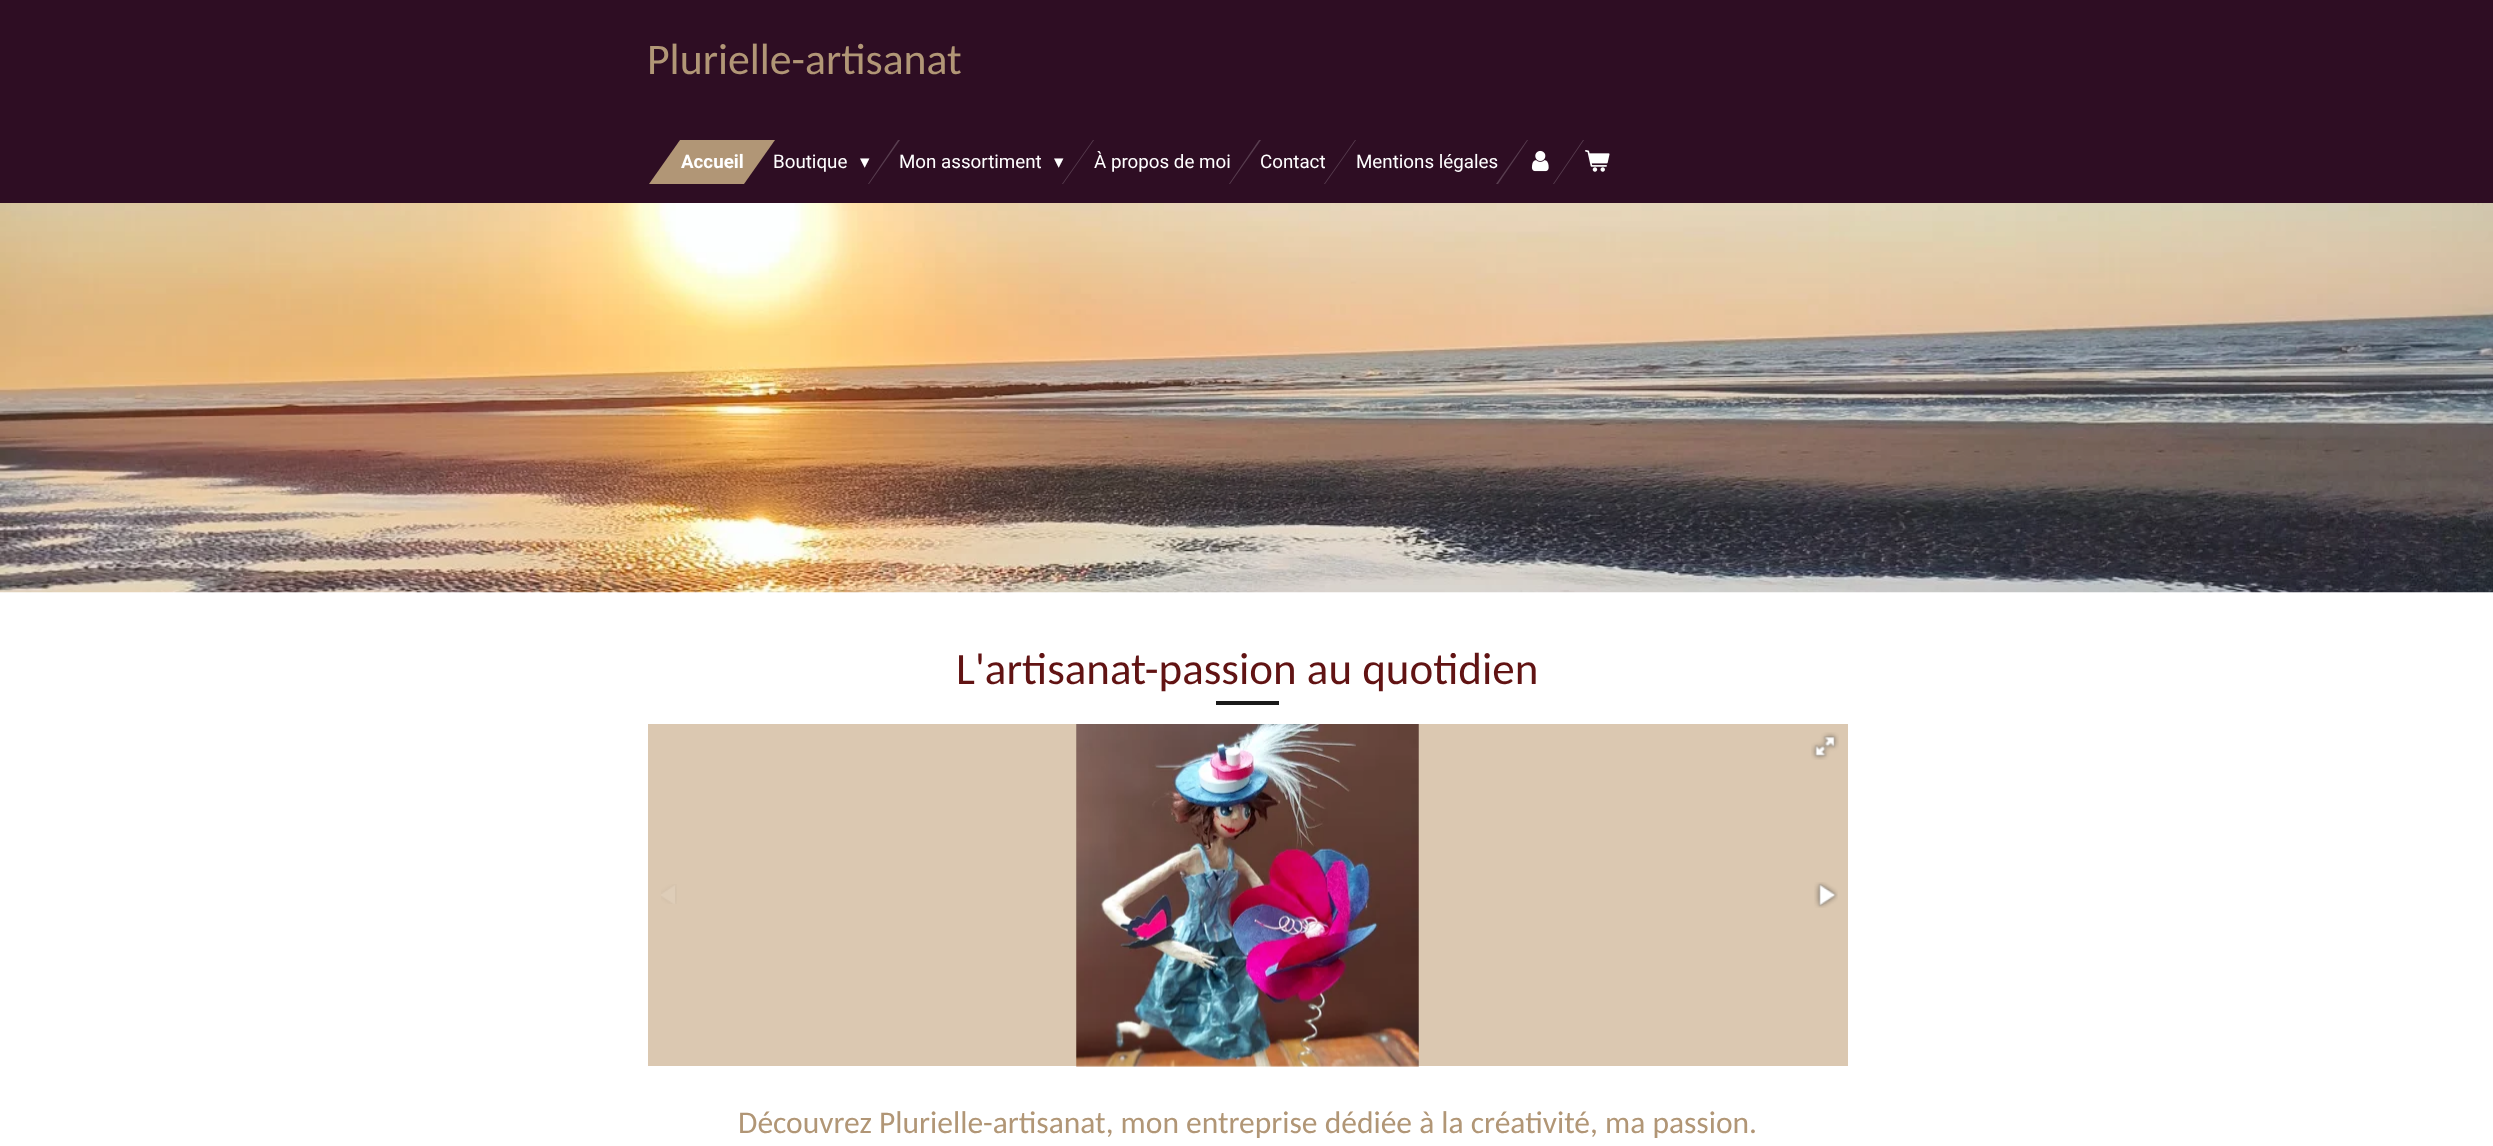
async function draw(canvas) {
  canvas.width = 2493
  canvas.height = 1146
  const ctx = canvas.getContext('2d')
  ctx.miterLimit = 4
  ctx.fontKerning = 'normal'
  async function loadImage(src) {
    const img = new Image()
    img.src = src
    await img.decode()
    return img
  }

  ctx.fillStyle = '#fff'
  ctx.fillRect(0, 0, 2493, 1146)
  ctx.fillStyle = '#2e0d23'
  ctx.fillRect(0, 0, 2493, 203)
  ctx.font = '43.75px Carlito'
  ctx.fillStyle = '#b19676'
  ctx.fillText('Plurielle-artisanat', 647, 74)
  ctx.font = '18.75px Roboto'
  ctx.fillStyle = '#fff'
  ctx.fillText('Boutique', 773, 168)
  ctx.fillStyle = '#b19676'
  ctx.beginPath()
  ctx.moveTo(680, 140)
  ctx.lineTo(775, 140)
  ctx.lineTo(744, 184)
  ctx.lineTo(649, 184)
  ctx.closePath()
  ctx.fill()
  ctx.font = 'bold 18.75px Roboto'
  ctx.fillStyle = '#fff'
  ctx.fillText('Accueil', 681, 168)
  ctx.fillStyle = '#583d4f'
  ctx.beginPath()
  ctx.moveTo(898, 140)
  ctx.lineTo(900, 140)
  ctx.lineTo(869, 184)
  ctx.lineTo(868, 184)
  ctx.closePath()
  ctx.fill()
  ctx.font = '18.75px DejaVu Sans'
  ctx.fillStyle = '#fff'
  ctx.fillText('▾', 860, 168)
  ctx.font = '18.75px Roboto'
  ctx.fillText('Mon assortiment', 899, 168)
  ctx.fillStyle = '#583d4f'
  ctx.beginPath()
  ctx.moveTo(1093, 140)
  ctx.lineTo(1094, 140)
  ctx.lineTo(1063, 184)
  ctx.lineTo(1062, 184)
  ctx.closePath()
  ctx.fill()
  ctx.font = '18.75px DejaVu Sans'
  ctx.fillStyle = '#fff'
  ctx.fillText('▾', 1054, 168)
  ctx.font = '18.75px Roboto'
  ctx.fillText('À propos de moi', 1094, 168)
  ctx.fillStyle = '#583d4f'
  ctx.beginPath()
  ctx.moveTo(1259, 140)
  ctx.lineTo(1261, 140)
  ctx.lineTo(1230, 184)
  ctx.lineTo(1229, 184)
  ctx.closePath()
  ctx.fill()
  ctx.beginPath()
  ctx.moveTo(1355, 140)
  ctx.lineTo(1356, 140)
  ctx.lineTo(1325, 184)
  ctx.lineTo(1324, 184)
  ctx.closePath()
  ctx.fill()
  ctx.fillStyle = '#fff'
  ctx.fillText('Contact', 1260, 168)
  ctx.fillStyle = '#583d4f'
  ctx.beginPath()
  ctx.moveTo(1527, 140)
  ctx.lineTo(1528, 140)
  ctx.lineTo(1498, 184)
  ctx.lineTo(1496, 184)
  ctx.closePath()
  ctx.fill()
  ctx.fillStyle = '#fff'
  ctx.fillText('Mentions légales', 1356, 168)
  ctx.drawImage(await loadImage('image0.png'), 1531, 150, 18, 22)
  ctx.fillStyle = '#583d4f'
  ctx.beginPath()
  ctx.moveTo(1583, 140)
  ctx.lineTo(1584, 140)
  ctx.lineTo(1554, 184)
  ctx.lineTo(1553, 184)
  ctx.closePath()
  ctx.fill()
  ctx.drawImage(await loadImage('image1.png'), 1585, 150, 25, 22)
  ctx.drawImage(await loadImage('image2.png'), 0, 203, 2493, 390)
  ctx.font = '45px Carlito'
  ctx.fillStyle = '#611313'
  ctx.fillText('L\'artisanat-passion au quotidien', 956, 684)
  ctx.fillStyle = '#1a1a1a'
  ctx.fillRect(1216, 701, 63, 4)
  ctx.fillStyle = '#dbc8b1'
  ctx.fillRect(648, 724, 1200, 342)
  ctx.drawImage(await loadImage('image3.png'), 1076, 724, 343, 343)
  ctx.drawImage(await loadImage('image4.png'), 1811, 732, 28, 28)
  ctx.drawImage(await loadImage('image5.png'), 661, 884, 16, 20)
  ctx.drawImage(await loadImage('image6.png'), 1814, 882, 24, 26)
  ctx.font = '31.5px Carlito'
  ctx.fillStyle = '#b19676'
  ctx.fillText('Découvrez Plurielle-artisanat, mon entreprise dédiée à la créativité, ma passion.', 738, 1133)
}

draw(document.querySelector('canvas'))
